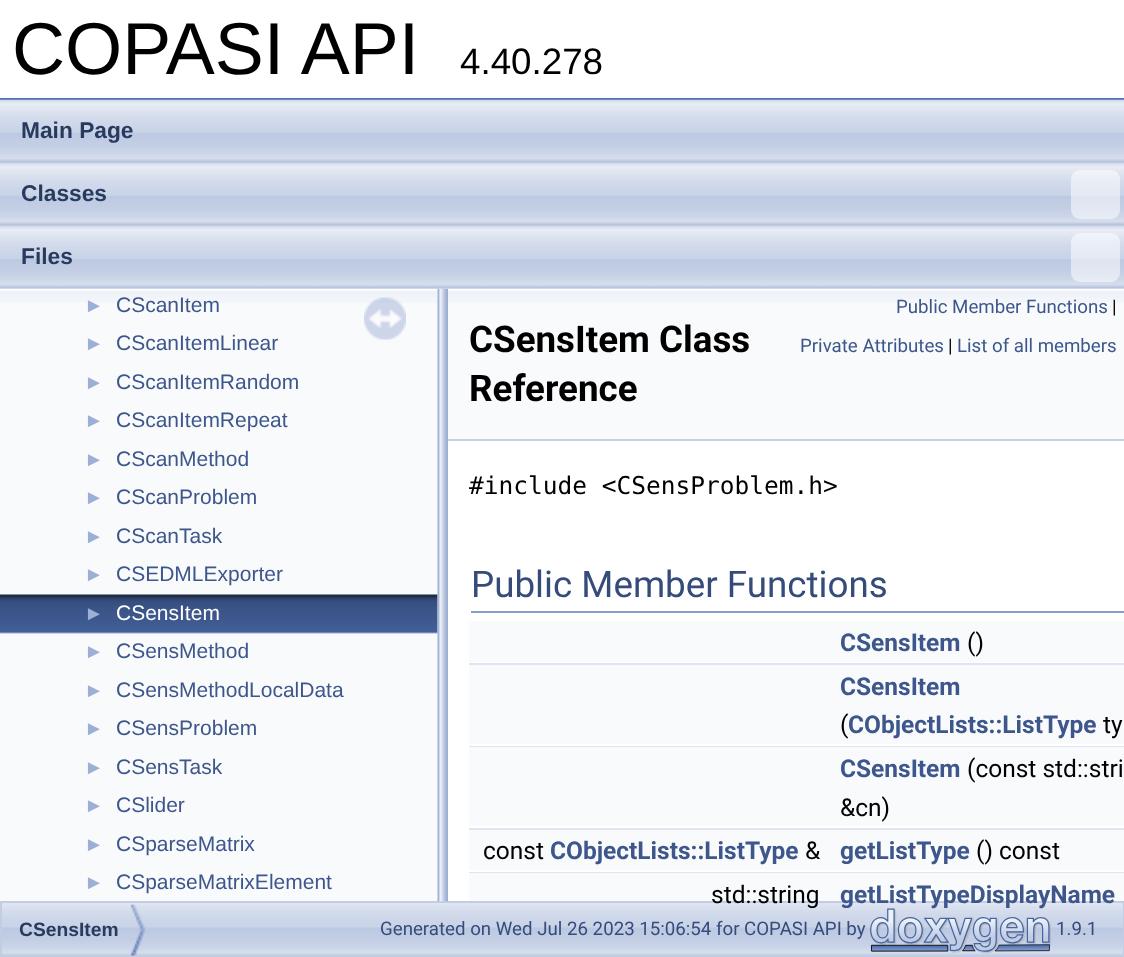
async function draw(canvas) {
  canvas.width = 1124
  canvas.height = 957
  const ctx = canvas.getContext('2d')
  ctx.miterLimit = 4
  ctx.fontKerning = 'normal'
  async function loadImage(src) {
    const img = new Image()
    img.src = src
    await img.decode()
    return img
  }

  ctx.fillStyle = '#fff'
  ctx.fillRect(0, 0, 1124, 957)
  ctx.fillStyle = '#5373b4'
  ctx.fillRect(0, 98, 1124, 2)
  ctx.font = '73.5px Liberation Sans'
  ctx.fillStyle = '#000'
  ctx.fillText('COPASI API', 12, 74)
  ctx.font = '36.75px Liberation Sans'
  ctx.fillText('4.40.278', 460, 74)
  ctx.fillStyle = '#f9fafc'
  ctx.fillRect(0, 289, 438, 612)
  ctx.drawImage(await loadImage('image1.png'), 0, 289, 438, 14)
  ctx.drawImage(await loadImage('image2.png'), 0, 594, 438, 40)
  ctx.drawImage(await loadImage('image6.png'), 2, 903, 1121, 52)
  ctx.strokeStyle = '#c2cde4'
  ctx.lineWidth = 2
  ctx.strokeRect(1, 902, 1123, 54)
  ctx.drawImage(await loadImage('image4.png'), 437, 288, 11, 614)
  ctx.drawImage(await loadImage('image0.png'), 0, 99, 1124, 190)
  ctx.font = 'bold 22.75px Liberation Sans'
  ctx.fillStyle = '#283a5d'
  ctx.fillText('Main Page', 21, 138)
  ctx.fillText('Classes', 21, 201)
  ctx.fillStyle = '#ffffff80'
  ctx.beginPath()
  ctx.roundRect(1071, 170, 49, 49, 9)
  ctx.fill()
  ctx.fillStyle = '#283a5d'
  ctx.fillText('Files', 21, 264)
  ctx.fillStyle = '#ffffff80'
  ctx.beginPath()
  ctx.roundRect(1071, 233, 49, 49, 9)
  ctx.fill()
  ctx.font = '20px Liberation Sans'
  ctx.fillStyle = '#9cafd4'
  ctx.fillText('►', 84, 312)
  ctx.font = '21px Liberation Sans'
  ctx.fillStyle = '#3d578c'
  ctx.fillText('CScanItem', 116, 312)
  ctx.font = '20px Liberation Sans'
  ctx.fillStyle = '#9cafd4'
  ctx.fillText('►', 84, 350)
  ctx.font = '21px Liberation Sans'
  ctx.fillStyle = '#3d578c'
  ctx.fillText('CScanItemLinear', 116, 350)
  ctx.font = '20px Liberation Sans'
  ctx.fillStyle = '#9cafd4'
  ctx.fillText('►', 84, 389)
  ctx.font = '21px Liberation Sans'
  ctx.fillStyle = '#3d578c'
  ctx.fillText('CScanItemRandom', 116, 389)
  ctx.font = '20px Liberation Sans'
  ctx.fillStyle = '#9cafd4'
  ctx.fillText('►', 84, 427)
  ctx.font = '21px Liberation Sans'
  ctx.fillStyle = '#3d578c'
  ctx.fillText('CScanItemRepeat', 116, 427)
  ctx.font = '20px Liberation Sans'
  ctx.fillStyle = '#9cafd4'
  ctx.fillText('►', 84, 466)
  ctx.font = '21px Liberation Sans'
  ctx.fillStyle = '#3d578c'
  ctx.fillText('CScanMethod', 116, 466)
  ctx.font = '20px Liberation Sans'
  ctx.fillStyle = '#9cafd4'
  ctx.fillText('►', 84, 504)
  ctx.font = '21px Liberation Sans'
  ctx.fillStyle = '#3d578c'
  ctx.fillText('CScanProblem', 116, 504)
  ctx.font = '20px Liberation Sans'
  ctx.fillStyle = '#9cafd4'
  ctx.fillText('►', 84, 543)
  ctx.font = '21px Liberation Sans'
  ctx.fillStyle = '#3d578c'
  ctx.fillText('CScanTask', 116, 543)
  ctx.font = '20px Liberation Sans'
  ctx.fillStyle = '#9cafd4'
  ctx.fillText('►', 84, 581)
  ctx.font = '21px Liberation Sans'
  ctx.fillStyle = '#3d578c'
  ctx.fillText('CSEDMLExporter', 116, 581)
  ctx.font = '20px Liberation Sans'
  ctx.fillStyle = '#9cafd4'
  ctx.fillText('►', 84, 620)
  ctx.font = '21px Liberation Sans'
  ctx.fillStyle = '#fff'
  ctx.fillText('CSensItem', 116, 620)
  ctx.font = '20px Liberation Sans'
  ctx.fillStyle = '#9cafd4'
  ctx.fillText('►', 84, 658)
  ctx.font = '21px Liberation Sans'
  ctx.fillStyle = '#3d578c'
  ctx.fillText('CSensMethod', 116, 658)
  ctx.font = '20px Liberation Sans'
  ctx.fillStyle = '#9cafd4'
  ctx.fillText('►', 84, 697)
  ctx.font = '21px Liberation Sans'
  ctx.fillStyle = '#3d578c'
  ctx.fillText('CSensMethodLocalData', 116, 697)
  ctx.font = '20px Liberation Sans'
  ctx.fillStyle = '#9cafd4'
  ctx.fillText('►', 84, 735)
  ctx.font = '21px Liberation Sans'
  ctx.fillStyle = '#3d578c'
  ctx.fillText('CSensProblem', 116, 735)
  ctx.font = '20px Liberation Sans'
  ctx.fillStyle = '#9cafd4'
  ctx.fillText('►', 84, 774)
  ctx.font = '21px Liberation Sans'
  ctx.fillStyle = '#3d578c'
  ctx.fillText('CSensTask', 116, 774)
  ctx.font = '20px Liberation Sans'
  ctx.fillStyle = '#9cafd4'
  ctx.fillText('►', 84, 812)
  ctx.font = '21px Liberation Sans'
  ctx.fillStyle = '#3d578c'
  ctx.fillText('CSlider', 116, 812)
  ctx.font = '20px Liberation Sans'
  ctx.fillStyle = '#9cafd4'
  ctx.fillText('►', 84, 851)
  ctx.font = '21px Liberation Sans'
  ctx.fillStyle = '#3d578c'
  ctx.fillText('CSparseMatrix', 116, 851)
  ctx.font = '20px Liberation Sans'
  ctx.fillStyle = '#9cafd4'
  ctx.fillText('►', 84, 889)
  ctx.font = '21px Liberation Sans'
  ctx.fillStyle = '#3d578c'
  ctx.fillText('CSparseMatrixElement', 116, 889)
  ctx.drawImage(await loadImage('image3.png'), 364, 297, 42, 43)
  ctx.fillStyle = '#f9fafc'
  ctx.fillRect(448, 303, 676, 136)
  ctx.drawImage(await loadImage('image5.png'), 448, 289, 676, 14)
  ctx.fillStyle = '#c4cfe5'
  ctx.fillRect(448, 439, 676, 2)
  ctx.font = 'bold 36.75px Roboto'
  ctx.fillStyle = '#000'
  ctx.fillText('CSensItem Class', 469, 352)
  ctx.fillText('Reference', 469, 401)
  ctx.font = '18.7px Roboto'
  ctx.fillStyle = '#3d578c'
  ctx.fillText('Public Member Functions', 896, 313)
  ctx.fillStyle = '#000'
  ctx.fillText('|', 1112, 313)
  ctx.fillStyle = '#3d578c'
  ctx.fillText('Private Attributes', 800, 352)
  ctx.fillStyle = '#000'
  ctx.fillText('|', 948, 352)
  ctx.fillStyle = '#3d578c'
  ctx.fillText('List of all members', 957, 352)
  ctx.font = '24.5px DejaVu Sans Mono'
  ctx.fillStyle = '#000'
  ctx.fillText('#include <CSensProblem.h>', 469, 494)
  ctx.fillStyle = '#879ecb'
  ctx.fillRect(471, 611, 653, 2)
  ctx.font = '36.75px Roboto'
  ctx.fillStyle = '#354c7b'
  ctx.fillText('Public Member Functions', 471, 597)
  ctx.fillStyle = '#f9fafc'
  ctx.fillRect(469, 621, 655, 41)
  ctx.font = 'bold 24.5px Roboto'
  ctx.fillStyle = '#3d578c'
  ctx.fillText('CSensItem', 840, 651)
  ctx.font = '24.5px Roboto'
  ctx.fillStyle = '#000'
  ctx.fillText('()', 967, 651)
  ctx.fillStyle = '#dee4f0'
  ctx.fillRect(469, 663, 655, 2)
  ctx.fillStyle = '#f9fafc'
  ctx.fillRect(469, 665, 655, 79)
  ctx.font = 'bold 24.5px Roboto'
  ctx.fillStyle = '#3d578c'
  ctx.fillText('CSensItem', 840, 695)
  ctx.font = '24.5px Roboto'
  ctx.fillStyle = '#000'
  ctx.fillText('(', 840, 733)
  ctx.font = 'bold 24.5px Roboto'
  ctx.fillStyle = '#3d578c'
  ctx.fillText('CObjectLists::ListType', 848, 733)
  ctx.font = '24.5px Roboto'
  ctx.fillStyle = '#000'
  ctx.fillText('ty', 1103, 733)
  ctx.fillStyle = '#dee4f0'
  ctx.fillRect(469, 746, 655, 1)
  ctx.fillStyle = '#f9fafc'
  ctx.fillRect(469, 747, 655, 79)
  ctx.font = 'bold 24.5px Roboto'
  ctx.fillStyle = '#3d578c'
  ctx.fillText('CSensItem', 840, 777)
  ctx.font = '24.5px Roboto'
  ctx.fillStyle = '#000'
  ctx.fillText('(const std::stri', 967, 777)
  ctx.fillText('&cn)', 840, 816)
  ctx.fillStyle = '#dee4f0'
  ctx.fillRect(469, 828, 655, 2)
  ctx.fillStyle = '#f9fafc'
  ctx.fillRect(469, 830, 655, 40)
  ctx.fillStyle = '#000'
  ctx.fillText('const', 483, 859)
  ctx.font = 'bold 24.5px Roboto'
  ctx.fillStyle = '#3d578c'
  ctx.fillText('CObjectLists::ListType', 550, 859)
  ctx.font = '24.5px Roboto'
  ctx.fillStyle = '#000'
  ctx.fillText('&', 805, 859)
  ctx.font = 'bold 24.5px Roboto'
  ctx.fillStyle = '#3d578c'
  ctx.fillText('getListType', 840, 859)
  ctx.font = '24.5px Roboto'
  ctx.fillStyle = '#000'
  ctx.fillText('() const', 976, 859)
  ctx.fillStyle = '#dee4f0'
  ctx.fillRect(469, 872, 655, 1)
  ctx.fillStyle = '#f9fafc'
  ctx.fillRect(469, 873, 655, 28)
  ctx.fillStyle = '#000'
  ctx.fillText('std::string', 711, 903)
  ctx.font = 'bold 24.5px Roboto'
  ctx.fillStyle = '#3d578c'
  ctx.fillText('getListTypeDisplayName', 840, 903)
  ctx.drawImage(await loadImage('image7.png'), 131, 904, 15, 52)
  ctx.font = 'bold 19.25px Liberation Sans'
  ctx.fillStyle = '#283a5d'
  ctx.fillText('CSensItem', 19, 936)
  ctx.font = '18.7px Roboto'
  ctx.fillStyle = '#354c7b'
  ctx.fillText('Generated on Wed Jul 26 2023 15:06:54 for COPASI API by', 380, 935)
  ctx.drawImage(await loadImage('image8.png'), 870, 908, 181, 46)
  ctx.fillText('1.9.1', 1056, 935)
}

draw(document.querySelector('canvas'))
